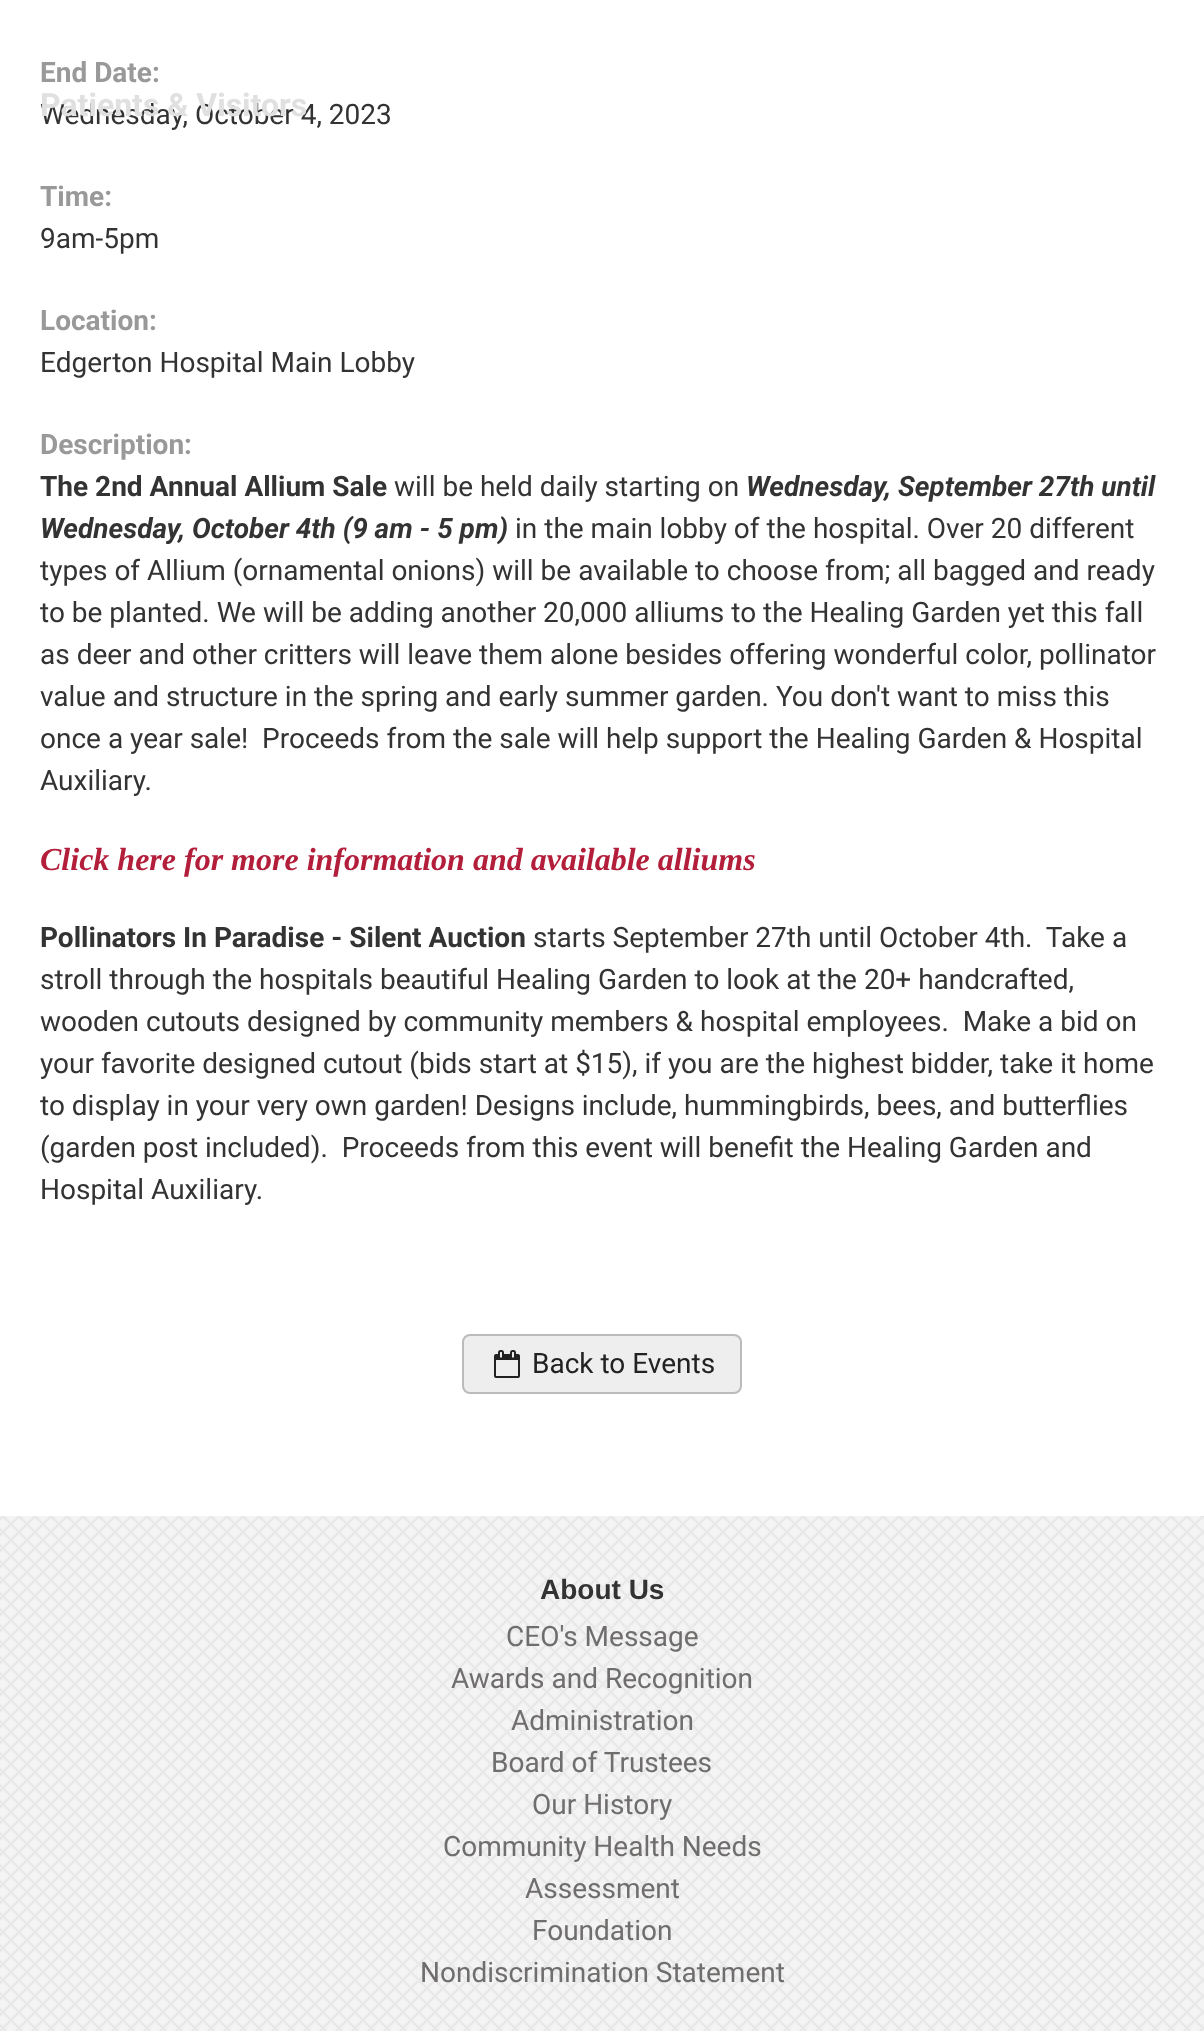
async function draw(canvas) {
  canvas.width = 1204
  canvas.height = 2031
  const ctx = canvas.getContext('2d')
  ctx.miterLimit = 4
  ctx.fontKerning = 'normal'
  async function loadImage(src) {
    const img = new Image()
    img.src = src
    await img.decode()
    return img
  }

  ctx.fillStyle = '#fff'
  ctx.fillRect(0, 0, 1204, 2031)
  ctx.drawImage(await loadImage('image0.png'), 0, 1516, 1204, 515)
  ctx.font = 'bold 28px Roboto'
  ctx.fillStyle = '#999'
  ctx.fillText('End Date:', 40, 82)
  ctx.font = '28px Roboto'
  ctx.fillStyle = '#333'
  ctx.fillText('Wednesday, October 4, 2023', 40, 124)
  ctx.font = 'bold 28px Roboto'
  ctx.fillStyle = '#999'
  ctx.fillText('Time:', 40, 206)
  ctx.font = '28px Roboto'
  ctx.fillStyle = '#333'
  ctx.fillText('9am-5pm', 40, 248)
  ctx.font = 'bold 28px Roboto'
  ctx.fillStyle = '#999'
  ctx.fillText('Location:', 40, 330)
  ctx.font = '28px Roboto'
  ctx.fillStyle = '#333'
  ctx.fillText('Edgerton Hospital Main Lobby', 40, 372)
  ctx.font = 'bold 28px Roboto'
  ctx.fillStyle = '#999'
  ctx.fillText('Description:', 40, 454)
  ctx.fillStyle = '#333'
  ctx.fillText('The 2nd Annual Allium Sale', 40, 496)
  ctx.font = '28px Roboto'
  ctx.fillText('will be held daily starting on', 394, 496)
  ctx.font = 'italic bold 28px Roboto'
  ctx.fillText('Wednesday, September 27th until', 746, 496)
  ctx.fillText('Wednesday, October 4th (9 am - 5 pm)', 40, 538)
  ctx.font = '28px Roboto'
  ctx.fillText('in the main lobby of the hospital. Over 20 different', 515, 538)
  ctx.fillText('types of Allium (ornamental onions) will be available to choose from; all bagged and ready', 40, 580)
  ctx.fillText('to be planted. We will be adding another 20,000 alliums to the Healing Garden yet this fall', 40, 622)
  ctx.fillText('as deer and other critters will leave them alone besides offering wonderful color, pollinator', 40, 664)
  ctx.fillText('value and structure in the spring and early summer garden. You don\'t want to miss this', 40, 706)
  ctx.fillText('once a year sale!  Proceeds from the sale will help support the Healing Garden & Hospital', 40, 748)
  ctx.fillText('Auxiliary.', 40, 790)
  ctx.font = 'italic bold 32px Liberation Serif'
  ctx.fillStyle = '#b31e3b'
  ctx.fillText('Click here for more information and available alliums', 40, 870)
  ctx.font = 'bold 28px Roboto'
  ctx.fillStyle = '#333'
  ctx.fillText('Pollinators In Paradise - Silent Auction', 40, 947)
  ctx.font = '28px Roboto'
  ctx.fillText('starts September 27th until October 4th.  Take a', 533, 947)
  ctx.fillText('stroll through the hospitals beautiful Healing Garden to look at the 20+ handcrafted,', 40, 989)
  ctx.fillText('wooden cutouts designed by community members & hospital employees.  Make a bid on', 40, 1031)
  ctx.fillText('your favorite designed cutout (bids start at $15), if you are the highest bidder, take it home', 40, 1073)
  ctx.fillText('to display in your very own garden! Designs include, hummingbirds, bees, and butterflies', 40, 1115)
  ctx.fillText('(garden post included).  Proceeds from this event will benefit the Healing Garden and', 40, 1157)
  ctx.fillText('Hospital Auxiliary.', 40, 1199)
  ctx.fillStyle = '#eee'
  ctx.beginPath()
  ctx.roundRect(463, 1335, 278, 58, 7)
  ctx.fill()
  ctx.strokeStyle = '#bbb'
  ctx.lineWidth = 2
  ctx.stroke()
  ctx.drawImage(await loadImage('image1.png'), 494, 1350, 26, 28)
  ctx.fillStyle = '#222'
  ctx.fillText('Back to Events', 532, 1373)
  ctx.font = 'bold 32px Roboto'
  ctx.fillStyle = '#e0e0e0'
  ctx.fillText('Patients & Visitors', 40, 116)
  ctx.font = 'bold 28px Liberation Sans'
  ctx.fillStyle = '#333'
  ctx.fillText('About Us', 540, 1599)
  ctx.font = '28px Roboto'
  ctx.fillStyle = '#706d6d'
  ctx.fillText('CEO\'s Message', 506, 1646)
  ctx.fillText('Awards and Recognition', 451, 1688)
  ctx.fillText('Administration', 511, 1730)
  ctx.fillText('Board of Trustees', 491, 1772)
  ctx.fillText('Our History', 532, 1814)
  ctx.fillText('Community Health Needs', 443, 1856)
  ctx.fillText('Assessment', 525, 1898)
  ctx.fillText('Foundation', 532, 1940)
  ctx.fillText('Nondiscrimination Statement', 420, 1982)
}

draw(document.querySelector('canvas'))
